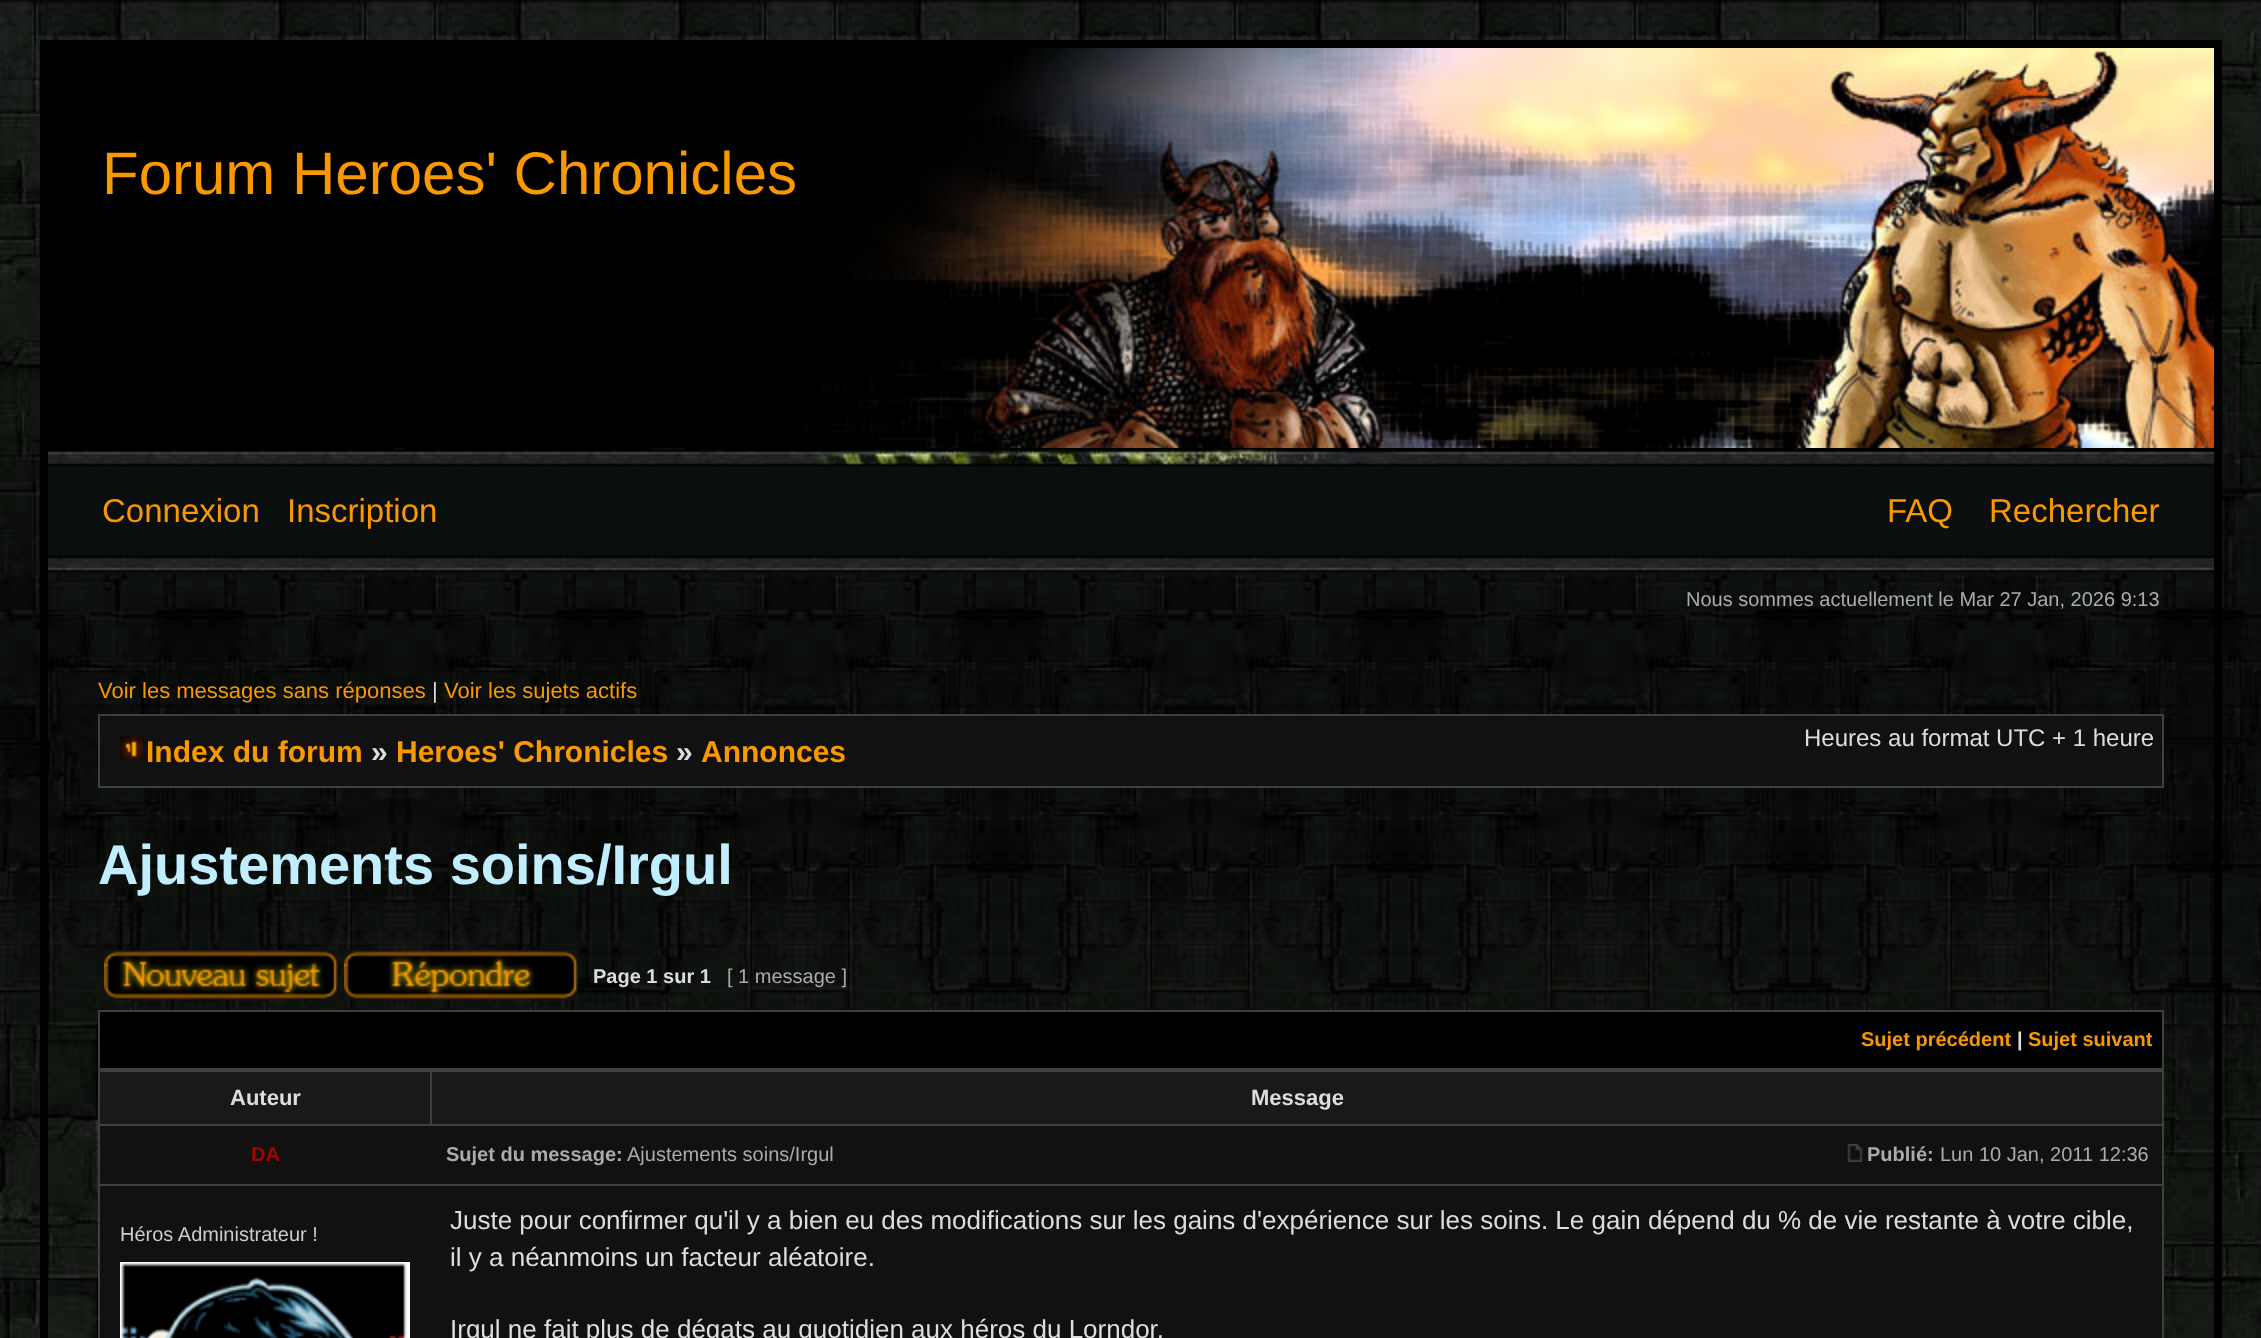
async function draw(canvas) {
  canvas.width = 2261
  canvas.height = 1338
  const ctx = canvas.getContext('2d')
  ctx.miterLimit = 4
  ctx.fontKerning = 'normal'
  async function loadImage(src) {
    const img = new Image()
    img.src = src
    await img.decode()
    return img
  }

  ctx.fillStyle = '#fff'
  ctx.fillRect(0, 0, 2261, 1338)
  ctx.drawImage(await loadImage('image0.png'), 0, 0, 2261, 1338)
  ctx.strokeStyle = '#000'
  ctx.lineWidth = 8
  ctx.strokeRect(44, 44, 2174, 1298)
  ctx.fillStyle = '#000'
  ctx.fillRect(48, 48, 750, 400)
  ctx.drawImage(await loadImage('image1.png'), 798, 48, 1416, 400)
  ctx.font = '60px Liberation Sans'
  ctx.fillStyle = '#fa9800'
  ctx.fillText('Forum Heroes\' Chronicles', 102, 194)
  ctx.fillStyle = '#0a0e0d'
  ctx.fillRect(48, 465, 2166, 109)
  ctx.drawImage(await loadImage('image2.png'), 48, 448, 2166, 124)
  ctx.font = '33px Liberation Sans'
  ctx.fillStyle = '#fa9800'
  ctx.fillText('Connexion', 102, 522)
  ctx.fillText('Inscription', 287, 522)
  ctx.fillText('FAQ', 1887, 522)
  ctx.fillText('Rechercher', 1989, 522)
  ctx.font = '20px Liberation Sans'
  ctx.fillStyle = '#ababab'
  ctx.fillText('Nous sommes actuellement le Mar 27 Jan, 2026 9:13', 1686, 606)
  ctx.font = '22px Liberation Sans'
  ctx.fillStyle = '#fa9800'
  ctx.fillText('Voir les messages sans réponses', 98, 698)
  ctx.fillStyle = '#ddd'
  ctx.fillText('|', 432, 698)
  ctx.fillStyle = '#fa9800'
  ctx.fillText('Voir les sujets actifs', 444, 698)
  ctx.fillStyle = '#3f3f3f'
  ctx.fillRect(98, 714, 2066, 74)
  ctx.fillStyle = '#111'
  ctx.fillRect(100, 716, 2062, 70)
  ctx.font = '24px Liberation Sans'
  ctx.fillStyle = '#ddd'
  ctx.fillText('Heures au format UTC + 1 heure', 1804, 746)
  ctx.drawImage(await loadImage('image3.png'), 119, 735, 26, 26)
  ctx.font = 'bold 30px Liberation Sans'
  ctx.fillStyle = '#fa9800'
  ctx.fillText('Index du forum', 146, 762)
  ctx.fillStyle = '#ddd'
  ctx.fillText('»', 371, 762)
  ctx.fillStyle = '#fa9800'
  ctx.fillText('Heroes\' Chronicles', 396, 762)
  ctx.fillStyle = '#ddd'
  ctx.fillText('»', 676, 762)
  ctx.fillStyle = '#fa9800'
  ctx.fillText('Annonces', 701, 762)
  ctx.font = 'bold 56px Liberation Sans'
  ctx.fillStyle = '#c1eeff'
  ctx.fillText('Ajustements soins/Irgul', 98, 884)
  ctx.drawImage(await loadImage('image4.png'), 104, 950, 234, 50)
  ctx.drawImage(await loadImage('image5.png'), 344, 950, 234, 50)
  ctx.font = 'bold 20px Liberation Sans'
  ctx.fillStyle = '#ddd'
  ctx.fillText('Page 1 sur 1', 593, 983)
  ctx.font = '20px Liberation Sans'
  ctx.fillStyle = '#ababab'
  ctx.fillText('[ 1 message ]', 727, 983)
  ctx.fillStyle = '#3f3f3f'
  ctx.fillRect(98, 1010, 2066, 328)
  ctx.fillStyle = '#000'
  ctx.fillRect(100, 1012, 2062, 56)
  ctx.font = 'bold 20px Liberation Sans'
  ctx.fillStyle = '#fa9800'
  ctx.fillText('Sujet précédent', 1861, 1046)
  ctx.fillStyle = '#ddd'
  ctx.fillText('|', 2017, 1046)
  ctx.fillStyle = '#fa9800'
  ctx.fillText('Sujet suivant', 2028, 1046)
  ctx.fillStyle = '#191919'
  ctx.fillRect(100, 1072, 330, 52)
  ctx.font = 'bold 22px Liberation Sans'
  ctx.fillStyle = '#ddd'
  ctx.fillText('Auteur', 230, 1105)
  ctx.fillStyle = '#191919'
  ctx.fillRect(432, 1072, 1730, 52)
  ctx.fillStyle = '#ddd'
  ctx.fillText('Message', 1251, 1105)
  ctx.fillStyle = '#111'
  ctx.fillRect(100, 1126, 2062, 58)
  ctx.font = 'bold 20px Liberation Sans'
  ctx.fillStyle = '#a00'
  ctx.fillText('DA', 251, 1161)
  ctx.fillStyle = '#ababab'
  ctx.fillText('Sujet du message:', 446, 1161)
  ctx.font = '20px Liberation Sans'
  ctx.fillText('Ajustements soins/Irgul', 627, 1161)
  ctx.drawImage(await loadImage('image6.png'), 1847, 1144, 16, 18)
  ctx.font = 'bold 20px Liberation Sans'
  ctx.fillText('Publié:', 1867, 1161)
  ctx.font = '20px Liberation Sans'
  ctx.fillText('Lun 10 Jan, 2011 12:36', 1940, 1161)
  ctx.fillStyle = '#111'
  ctx.fillRect(100, 1186, 2062, 152)
  ctx.fillStyle = '#ccc'
  ctx.fillText('Héros Administrateur !', 120, 1241)
  ctx.drawImage(await loadImage('image7.png'), 120, 1262, 290, 76)
  ctx.font = '26px Liberation Sans'
  ctx.fillStyle = '#ddd'
  ctx.fillText('Juste pour confirmer qu\'il y a bien eu des modifications sur les gains d\'expérience sur les soins. Le gain dépend du % de vie restante à votre cible,', 450, 1229)
  ctx.fillText('il y a néanmoins un facteur aléatoire.', 450, 1266)
  ctx.fillText('Irgul ne fait plus de dégats au quotidien aux héros du Lorndor.', 450, 1338)
}

draw(document.querySelector('canvas'))
